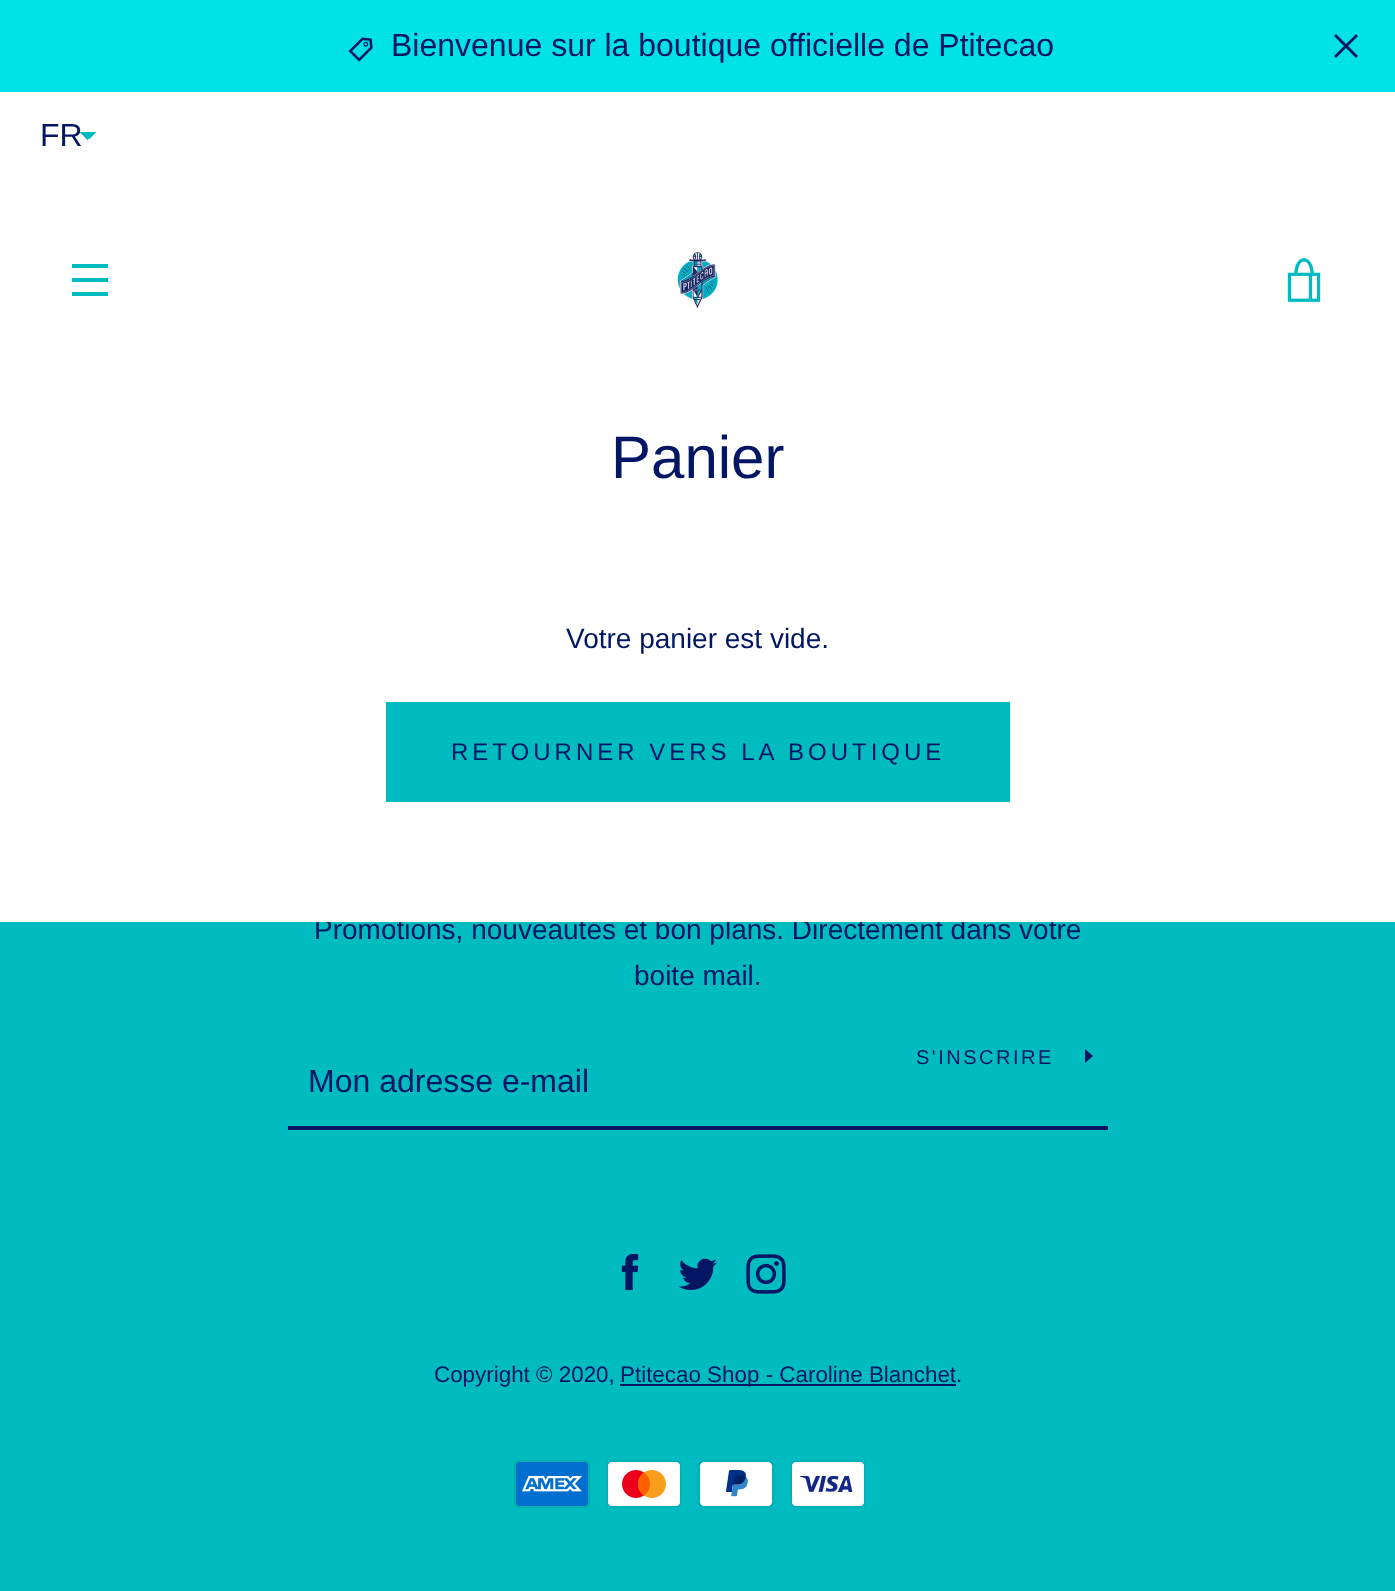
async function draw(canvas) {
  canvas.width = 1395
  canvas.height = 1591
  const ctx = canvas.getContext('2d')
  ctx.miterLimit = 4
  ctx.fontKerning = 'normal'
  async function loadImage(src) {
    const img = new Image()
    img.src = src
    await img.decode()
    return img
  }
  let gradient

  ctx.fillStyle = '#fff'
  ctx.fillRect(0, 0, 1395, 1591)
  ctx.fillStyle = '#00e2e7'
  ctx.fillRect(0, 0, 1395, 92)
  ctx.drawImage(await loadImage('image0.png'), 348, 37, 25, 25)
  ctx.font = '32px Liberation Sans'
  ctx.fillStyle = '#021663'
  ctx.fillText('Bienvenue sur la boutique officielle de Ptitecao', 391, 56)
  ctx.drawImage(await loadImage('image1.png'), 1334, 34, 24, 24)
  gradient = ctx.createLinearGradient(88, 132, 96, 140)
  gradient.addColorStop(0.5, '#00bbbf')
  gradient.addColorStop(0.5, '#fff')
  ctx.fillStyle = gradient
  ctx.fillRect(88, 132, 8, 7)
  gradient = ctx.createLinearGradient(80, 140, 88, 132)
  gradient.addColorStop(0.5, '#fff')
  gradient.addColorStop(0.5, '#00bbbf')
  ctx.fillStyle = gradient
  ctx.fillRect(80, 132, 8, 8)
  ctx.fillStyle = '#021663'
  ctx.fillText('FR', 40, 146)
  ctx.fillStyle = '#00bbbf'
  ctx.fillRect(72, 264, 36, 4)
  ctx.fillRect(72, 278, 36, 4)
  ctx.fillRect(72, 292, 36, 4)
  ctx.drawImage(await loadImage('image2.png'), 677, 252, 41, 57)
  ctx.drawImage(await loadImage('image3.png'), 1287, 258, 34, 44)
  ctx.fillRect(0, 922, 1395, 669)
  ctx.font = '28px Liberation Sans'
  ctx.fillStyle = '#021663'
  ctx.fillText('Promotions, nouveautés et bon plans. Directement dans votre', 314, 939)
  ctx.fillStyle = '#fff'
  ctx.fillRect(316, 918, 738, 4)
  ctx.font = '60px Liberation Sans'
  ctx.fillStyle = '#021663'
  ctx.fillText('Panier', 611, 478)
  ctx.font = '28px Liberation Sans'
  ctx.fillText('Votre panier est vide.', 566, 648)
  ctx.fillStyle = '#00bbbf'
  ctx.fillRect(386, 702, 624, 100)
  ctx.letterSpacing = '4px'
  ctx.font = '24px Liberation Sans'
  ctx.fillStyle = '#021663'
  ctx.fillText('RETOURNER VERS LA BOUTIQUE', 451, 760)
  ctx.letterSpacing = '0px'
  ctx.font = '28px Liberation Sans'
  ctx.fillText('boite mail.', 634, 985)
  ctx.fillRect(288, 1126, 820, 4)
  ctx.letterSpacing = '2.5px'
  ctx.font = '20px Liberation Sans'
  ctx.fillText('S\'INSCRIRE', 916, 1064)
  ctx.beginPath()
  ctx.moveTo(1093, 1056)
  ctx.lineTo(1085, 1063)
  ctx.lineTo(1085, 1049)
  ctx.closePath()
  ctx.fill()
  ctx.letterSpacing = '0px'
  ctx.font = '32px Liberation Sans'
  ctx.fillText('Mon adresse e-mail', 308, 1092)
  ctx.drawImage(await loadImage('image4.png'), 621, 1254, 18, 37)
  ctx.drawImage(await loadImage('image5.png'), 678, 1258, 39, 32)
  ctx.drawImage(await loadImage('image6.png'), 746, 1254, 40, 40)
  ctx.font = '22.4px Liberation Sans'
  ctx.fillText('Copyright © 2020,', 434, 1382)
  ctx.fillRect(620, 1384, 336, 2)
  ctx.fillText('Ptitecao Shop - Caroline Blanchet', 620, 1382)
  ctx.fillText('.', 956, 1382)
  ctx.drawImage(await loadImage('image7.png'), 514, 1460, 76, 48)
  ctx.drawImage(await loadImage('image8.png'), 606, 1460, 76, 48)
  ctx.drawImage(await loadImage('image9.png'), 698, 1460, 76, 48)
  ctx.drawImage(await loadImage('image10.png'), 790, 1460, 76, 48)
}

draw(document.querySelector('canvas'))
